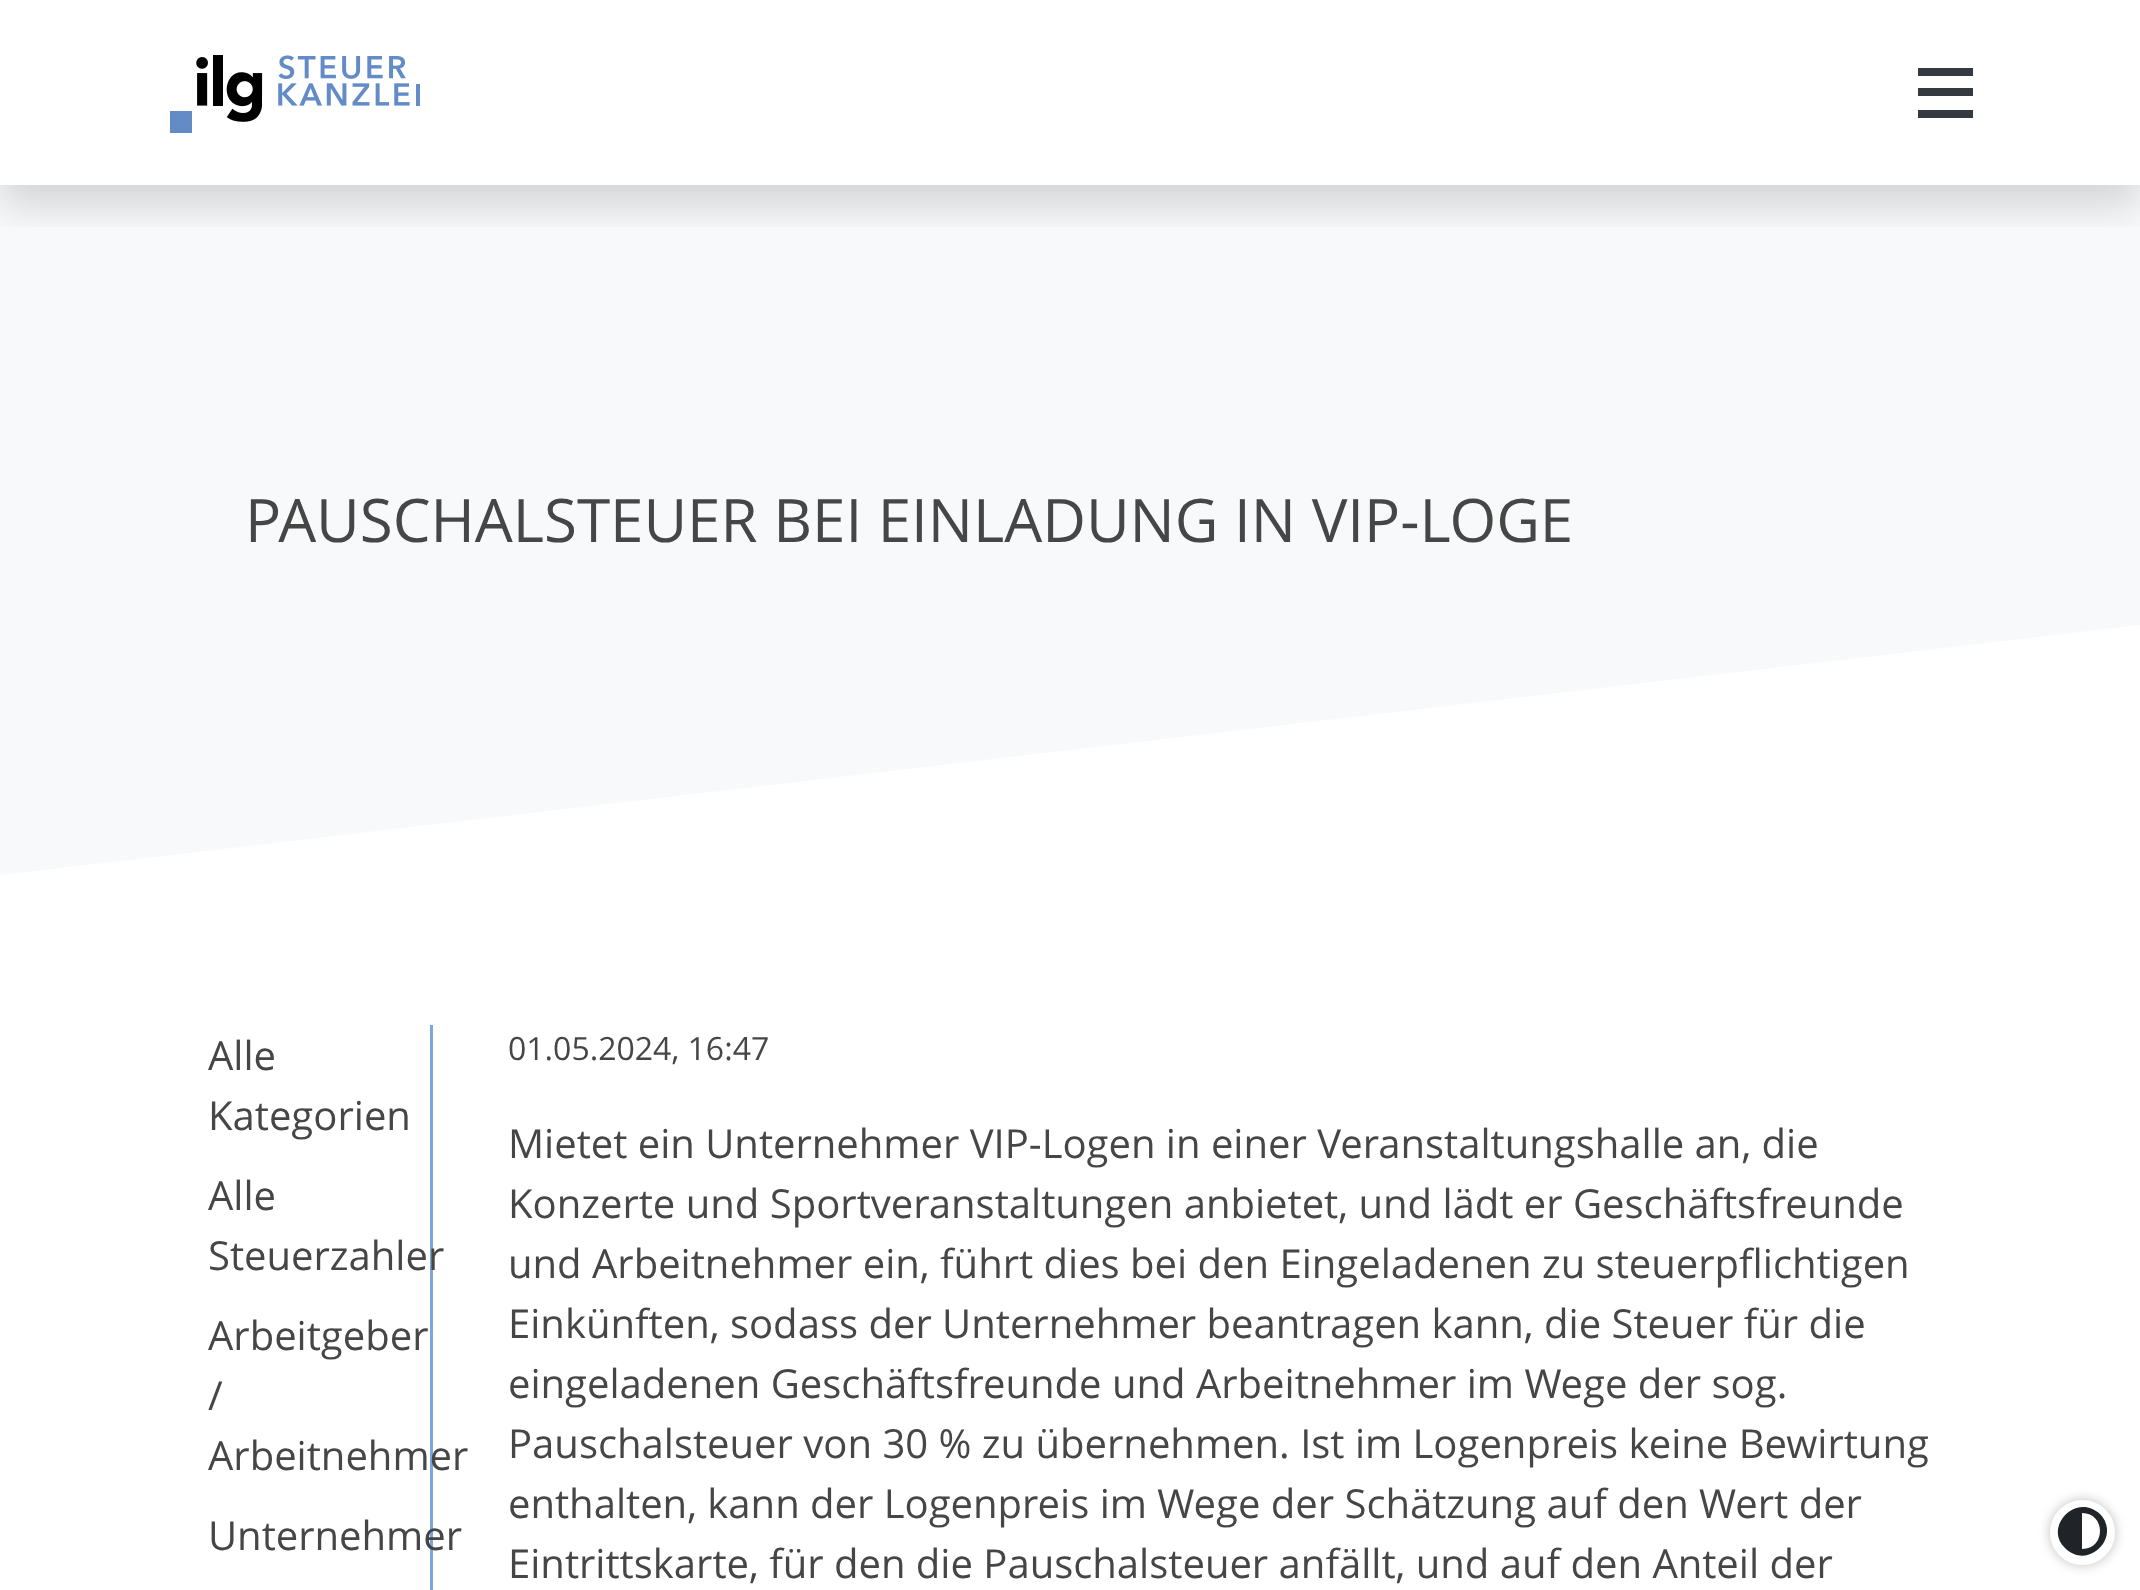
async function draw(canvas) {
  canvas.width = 2140
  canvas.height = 1590
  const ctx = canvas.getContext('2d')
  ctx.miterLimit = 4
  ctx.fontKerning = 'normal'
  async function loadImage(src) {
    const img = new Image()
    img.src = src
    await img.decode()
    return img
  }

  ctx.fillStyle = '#fff'
  ctx.fillRect(0, 0, 2140, 1590)
  ctx.fillStyle = '#f8f9fa'
  ctx.fillRect(0, 185, 2140, 690)
  ctx.save()
  ctx.beginPath()
  ctx.rect(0, 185, 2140, 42)
  ctx.clip()
  ctx.fillStyle = '#00000026'
  ctx.filter = 'blur(20px)'
  ctx.beginPath()
  ctx.rect(0, 20, 2140, 185)
  ctx.fill()
  ctx.filter = 'none'
  ctx.restore()
  ctx.drawImage(await loadImage('image0.png'), 170, 55, 250, 78)
  ctx.fillStyle = '#343a40'
  ctx.fillRect(1918, 68, 55, 8)
  ctx.fillRect(1918, 88, 55, 8)
  ctx.fillRect(1918, 110, 55, 8)
  ctx.font = '60px Open Sans'
  ctx.fillStyle = '#464646'
  ctx.fillText('PAUSCHALSTEUER BEI EINLADUNG IN VIP-LOGE', 245, 542)
  ctx.fillStyle = '#fff'
  ctx.beginPath()
  ctx.moveTo(2140, 875)
  ctx.lineTo(0, 875)
  ctx.lineTo(2140, 625)
  ctx.closePath()
  ctx.fill()
  ctx.fillStyle = '#7ca8d9'
  ctx.fillRect(430, 1025, 3, 565)
  ctx.font = '40px Open Sans'
  ctx.fillStyle = '#464646'
  ctx.fillText('Alle', 208, 1070)
  ctx.fillText('Kategorien', 208, 1130)
  ctx.fillText('Alle', 208, 1210)
  ctx.fillText('Steuerzahler', 208, 1270)
  ctx.fillText('Arbeitgeber', 208, 1350)
  ctx.fillText('/', 208, 1410)
  ctx.fillText('Arbeitnehmer', 208, 1470)
  ctx.fillText('Unternehmer', 208, 1550)
  ctx.font = '32px Open Sans'
  ctx.fillText('01.05.2024, 16:47', 508, 1060)
  ctx.font = '40px Open Sans'
  ctx.fillText('Mietet ein Unternehmer VIP-Logen in einer Veranstaltungshalle an, die', 508, 1158)
  ctx.fillText('Konzerte und Sportveranstaltungen anbietet, und lädt er Geschäftsfreunde', 508, 1218)
  ctx.fillText('und Arbeitnehmer ein, führt dies bei den Eingeladenen zu steuerpflichtigen', 508, 1278)
  ctx.fillText('Einkünften, sodass der Unternehmer beantragen kann, die Steuer für die', 508, 1338)
  ctx.fillText('eingeladenen Geschäftsfreunde und Arbeitnehmer im Wege der sog.', 508, 1398)
  ctx.fillText('Pauschalsteuer von 30 % zu übernehmen. Ist im Logenpreis keine Bewirtung', 508, 1458)
  ctx.fillText('enthalten, kann der Logenpreis im Wege der Schätzung auf den Wert der', 508, 1518)
  ctx.fillText('Eintrittskarte, für den die Pauschalsteuer anfällt, und auf den Anteil der', 508, 1578)
  ctx.fillStyle = '#00000040'
  ctx.filter = 'blur(6px)'
  ctx.beginPath()
  ctx.roundRect(2050, 1500, 65, 65, 32.5)
  ctx.fill()
  ctx.filter = 'none'
  ctx.fillStyle = '#fff'
  ctx.beginPath()
  ctx.arc(2082.5, 1532.5, 31, 0, 2 * Math.PI)
  ctx.fill()
  ctx.strokeStyle = '#fff'
  ctx.lineWidth = 3
  ctx.stroke()
  ctx.fillStyle = '#202428'
  ctx.beginPath()
  ctx.moveTo(2065, 1548)
  ctx.bezierCurveTo(2043, 1526, 2077, 1492, 2100, 1514)
  ctx.bezierCurveTo(2122, 1537, 2088, 1571, 2065, 1548)
  ctx.closePath()
  ctx.moveTo(2082, 1549)
  ctx.bezierCurveTo(2106, 1549, 2106, 1513, 2082, 1513)
  ctx.closePath()
  ctx.fill()
}

draw(document.querySelector('canvas'))
